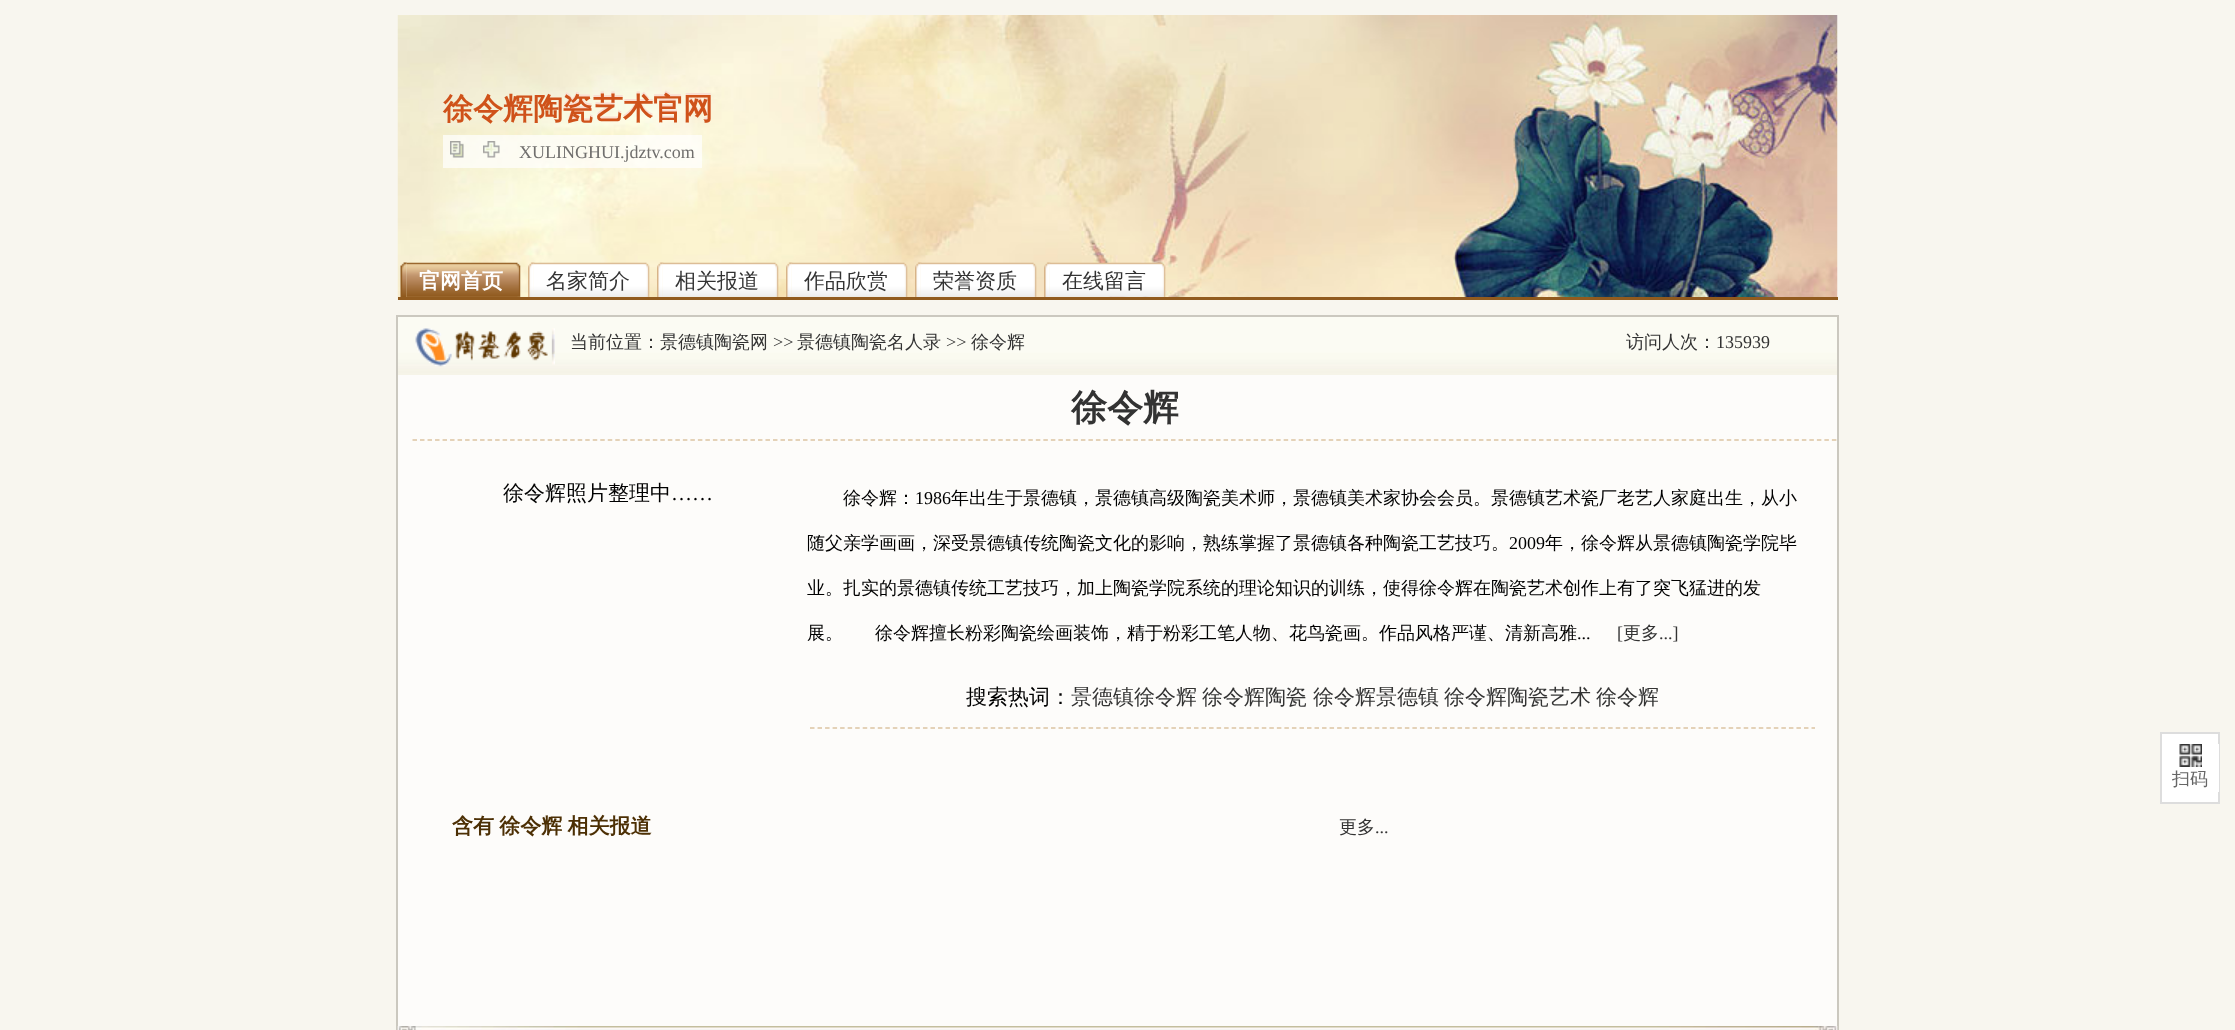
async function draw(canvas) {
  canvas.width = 2235
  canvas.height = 1030
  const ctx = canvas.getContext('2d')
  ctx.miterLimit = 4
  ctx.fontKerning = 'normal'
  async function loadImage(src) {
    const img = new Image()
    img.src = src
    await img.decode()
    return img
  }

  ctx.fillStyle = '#f8f6ef'
  ctx.fillRect(0, 0, 2235, 1030)
  ctx.drawImage(await loadImage('image0.png'), 397, 15, 1441, 285)
  ctx.fillStyle = '#915b1f'
  ctx.fillRect(398, 297, 1440, 3)
  ctx.font = 'bold 30px WenQuanYi Zen Hei'
  ctx.fillStyle = '#fadfd3'
  ctx.fillText('瓷艺术官网', 563, 117)
  ctx.fillStyle = '#cf521a'
  ctx.fillText('徐令辉陶瓷艺术官网', 443, 119)
  ctx.fillStyle = '#ffffffb3'
  ctx.fillRect(443, 135, 259, 33)
  ctx.drawImage(await loadImage('image1.png'), 450, 141, 14, 17)
  ctx.drawImage(await loadImage('image2.png'), 483, 141, 17, 17)
  ctx.font = '18px Liberation Serif'
  ctx.fillStyle = '#706f6d'
  ctx.fillText('XULINGHUI.jdztv.com', 519, 158)
  ctx.drawImage(await loadImage('image3.png'), 400, 262, 7, 35)
  ctx.drawImage(await loadImage('image4.png'), 406, 262, 115, 35)
  ctx.font = 'bold 21px WenQuanYi Zen Hei'
  ctx.fillStyle = '#fff'
  ctx.fillText('官网首页', 419, 288)
  ctx.drawImage(await loadImage('image5.png'), 528, 262, 7, 35)
  ctx.drawImage(await loadImage('image6.png'), 534, 262, 116, 35)
  ctx.font = '500 21px WenQuanYi Zen Hei'
  ctx.fillStyle = '#333'
  ctx.fillText('名家简介', 546, 288)
  ctx.drawImage(await loadImage('image7.png'), 657, 262, 7, 35)
  ctx.drawImage(await loadImage('image8.png'), 663, 262, 116, 35)
  ctx.fillText('相关报道', 675, 288)
  ctx.drawImage(await loadImage('image9.png'), 786, 262, 7, 35)
  ctx.drawImage(await loadImage('image10.png'), 792, 262, 116, 35)
  ctx.fillText('作品欣赏', 804, 288)
  ctx.drawImage(await loadImage('image11.png'), 915, 262, 7, 35)
  ctx.drawImage(await loadImage('image12.png'), 921, 262, 116, 35)
  ctx.fillText('荣誉资质', 933, 288)
  ctx.drawImage(await loadImage('image13.png'), 1044, 262, 7, 35)
  ctx.drawImage(await loadImage('image14.png'), 1050, 262, 116, 35)
  ctx.fillText('在线留言', 1062, 288)
  ctx.fillStyle = '#fdfcfa'
  ctx.fillRect(398, 375, 1439, 651)
  ctx.drawImage(await loadImage('image15.png'), 398, 317, 1439, 58)
  ctx.strokeStyle = '#cbc8bf'
  ctx.lineWidth = 2
  ctx.strokeRect(397, 316, 1441, 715)
  ctx.drawImage(await loadImage('image16.png'), 415, 328, 140, 39)
  ctx.font = '500 18px WenQuanYi Zen Hei'
  ctx.fillStyle = '#333'
  ctx.fillText('当前位置：景德镇陶瓷网', 570, 348)
  ctx.font = '18px Liberation Serif'
  ctx.fillText('>>', 773, 348)
  ctx.font = '500 18px WenQuanYi Zen Hei'
  ctx.fillText('景德镇陶瓷名人录', 797, 348)
  ctx.font = '18px Liberation Serif'
  ctx.fillText('>>', 946, 348)
  ctx.font = '500 18px WenQuanYi Zen Hei'
  ctx.fillText('徐令辉', 971, 348)
  ctx.fillText('访问人次：', 1626, 348)
  ctx.font = '18px Liberation Serif'
  ctx.fillText('135939', 1716, 348)
  ctx.beginPath()
  ctx.moveTo(412.5, 440)
  ctx.lineTo(1837.5, 440)
  ctx.strokeStyle = '#dcc4a2'
  ctx.lineWidth = 1.5
  ctx.setLineDash([4.5, 3.01])
  ctx.stroke()
  ctx.font = 'bold 36px WenQuanYi Zen Hei'
  ctx.fillText('徐令辉', 1071, 420)
  ctx.font = '500 21px WenQuanYi Zen Hei'
  ctx.fillStyle = '#000'
  ctx.fillText('徐令辉照片整理中', 503, 500)
  ctx.font = '21px Liberation Serif'
  ctx.fillText('……', 671, 500)
  ctx.font = '500 18px WenQuanYi Zen Hei'
  ctx.fillText('徐令辉：', 843, 504)
  ctx.font = '18px Liberation Serif'
  ctx.fillText('1986', 915, 504)
  ctx.font = '500 18px WenQuanYi Zen Hei'
  ctx.fillText('年出生于景德镇，景德镇高级陶瓷美术师，景德镇美术家协会会员。景德镇艺术瓷厂老艺人家庭出生，从小', 951, 504)
  ctx.fillText('随父亲学画画，深受景德镇传统陶瓷文化的影响，熟练掌握了景德镇各种陶瓷工艺技巧。', 807, 549)
  ctx.font = '18px Liberation Serif'
  ctx.fillText('2009', 1509, 549)
  ctx.font = '500 18px WenQuanYi Zen Hei'
  ctx.fillText('年，徐令辉从景德镇陶瓷学院毕', 1545, 549)
  ctx.fillText('业。扎实的景德镇传统工艺技巧，加上陶瓷学院系统的理论知识的训练，使得徐令辉在陶瓷艺术创作上有了突飞猛进的发', 807, 594)
  ctx.fillText('展。', 807, 639)
  ctx.fillText('徐令辉擅长粉彩陶瓷绘画装饰，精于粉彩工笔人物、花鸟瓷画。作品风格严谨、清新高雅', 875, 639)
  ctx.font = '18px Liberation Serif'
  ctx.fillText('...', 1577, 639)
  ctx.fillStyle = '#333'
  ctx.fillText('[', 1617, 639)
  ctx.font = '500 18px WenQuanYi Zen Hei'
  ctx.fillText('更多', 1623, 639)
  ctx.font = '18px Liberation Serif'
  ctx.fillText('...]', 1659, 639)
  ctx.beginPath()
  ctx.moveTo(810, 728)
  ctx.lineTo(1815, 728)
  ctx.setLineDash([4.5, 3.03])
  ctx.stroke()
  ctx.font = '500 21px WenQuanYi Zen Hei'
  ctx.fillStyle = '#000'
  ctx.fillText('搜索热词：', 966, 704)
  ctx.fillStyle = '#333'
  ctx.fillText('景德镇徐令辉', 1071, 704)
  ctx.fillText('徐令辉陶瓷', 1202, 704)
  ctx.fillText('徐令辉景德镇', 1313, 704)
  ctx.fillText('徐令辉陶瓷艺术', 1444, 704)
  ctx.fillText('徐令辉', 1596, 704)
  ctx.wordSpacing = '-1px'
  ctx.font = 'bold 21px WenQuanYi Zen Hei'
  ctx.fillStyle = '#4c2f04'
  ctx.fillText('含有 徐令辉 相关报道', 452, 833)
  ctx.wordSpacing = '0px'
  ctx.font = '500 18px WenQuanYi Zen Hei'
  ctx.fillStyle = '#333'
  ctx.fillText('更多', 1339, 833)
  ctx.font = '18px Liberation Serif'
  ctx.fillText('...', 1375, 833)
  ctx.drawImage(await loadImage('image17.png'), 397, 1026, 1441, 4)
  ctx.fillStyle = '#fff'
  ctx.beginPath()
  ctx.rect(2161, 733, 58, 70)
  ctx.fill()
  ctx.strokeStyle = '#ddd'
  ctx.lineWidth = 2
  ctx.setLineDash([])
  ctx.stroke()
  ctx.fillRect(2218, 744, 1, 48)
  ctx.drawImage(await loadImage('image18.png'), 2179, 744, 23, 23)
  ctx.font = '500 18px WenQuanYi Zen Hei'
  ctx.fillStyle = '#666'
  ctx.fillText('扫码', 2172, 785)
}

draw(document.querySelector('canvas'))
